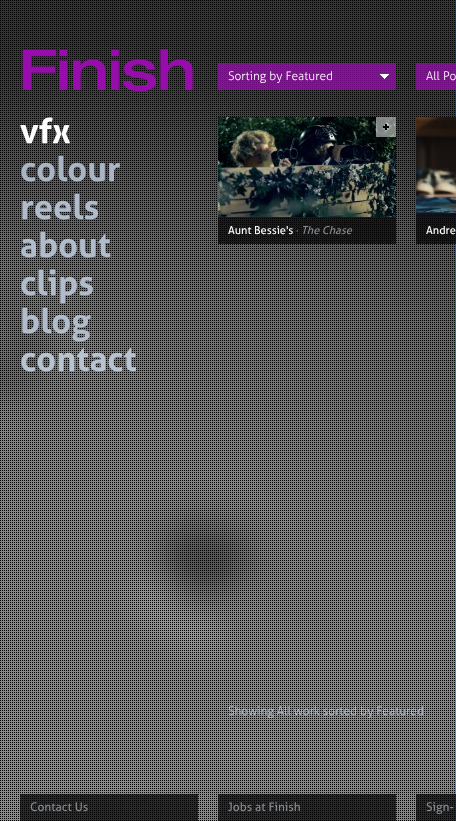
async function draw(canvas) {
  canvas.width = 456
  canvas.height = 821
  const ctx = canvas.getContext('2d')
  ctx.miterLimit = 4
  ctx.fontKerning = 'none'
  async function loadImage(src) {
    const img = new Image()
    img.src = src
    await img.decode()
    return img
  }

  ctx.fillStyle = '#fff'
  ctx.fillRect(0, 0, 456, 821)
  ctx.drawImage(await loadImage('image0.png'), 0, 0, 456, 821)
  ctx.drawImage(await loadImage('image1.png'), 0, 0, 455, 821)
  ctx.font = '80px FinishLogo'
  ctx.fillStyle = '#960dab'
  ctx.fillText('Finish', 23, 90)
  ctx.font = 'bold 34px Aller'
  ctx.fillStyle = '#fff'
  ctx.fillText('vfx', 20, 143)
  ctx.fillStyle = '#a9b4c4'
  ctx.fillText('colour', 20, 181)
  ctx.fillStyle = '#b1bccb'
  ctx.fillText('reels', 20, 219)
  ctx.fillText('about', 20, 257)
  ctx.fillText('clips', 20, 295)
  ctx.fillText('blog', 20, 333)
  ctx.fillStyle = '#b8c3d0'
  ctx.fillText('contact', 20, 371)
  ctx.fillStyle = '#960dabbf'
  ctx.fillRect(218, 63, 178, 27)
  ctx.drawImage(await loadImage('image2.png'), 380, 74, 9, 5)
  ctx.font = '12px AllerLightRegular'
  ctx.fillStyle = '#fff'
  ctx.fillText('Sorting by Featured', 228, 80)
  ctx.fillStyle = '#960dabbf'
  ctx.fillRect(416, 63, 40, 27)
  ctx.fillStyle = '#fff'
  ctx.fillText('All Po', 426, 80)
  ctx.fillStyle = '#000000b3'
  ctx.fillRect(218, 217, 178, 27)
  ctx.drawImage(await loadImage('image3.png'), 218, 117, 178, 100)
  ctx.fillStyle = '#ffffff80'
  ctx.fillRect(376, 117, 20, 20)
  ctx.drawImage(await loadImage('image4.png'), 383, 124, 6, 6)
  ctx.font = '11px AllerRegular'
  ctx.fillStyle = '#fff'
  ctx.fillText('Aunt Bessie\'s', 228, 234)
  ctx.fillStyle = '#868b90'
  ctx.fillText('·', 296, 234)
  ctx.font = 'italic 11px AllerRegular'
  ctx.fillText('The Chase', 301, 234)
  ctx.fillStyle = '#000000b3'
  ctx.fillRect(416, 217, 40, 27)
  ctx.drawImage(await loadImage('image5.png'), 416, 117, 40, 100)
  ctx.font = '11px AllerRegular'
  ctx.fillStyle = '#fff'
  ctx.fillText('Andre', 426, 234)
  ctx.font = '12px AllerLightRegular'
  ctx.fillStyle = '#b8c3d0'
  ctx.fillText('Showing All work sorted by Featured', 228, 715)
  ctx.fillStyle = '#000000b3'
  ctx.fillRect(20, 794, 178, 27)
  ctx.font = '12px AllerRegular'
  ctx.fillStyle = '#868b90'
  ctx.fillText('Contact Us', 30, 811)
  ctx.fillStyle = '#000000b3'
  ctx.fillRect(218, 794, 178, 27)
  ctx.fillStyle = '#868b90'
  ctx.fillText('Jobs at Finish', 228, 811)
  ctx.fillStyle = '#000000b3'
  ctx.fillRect(416, 794, 40, 27)
  ctx.fillStyle = '#868b90'
  ctx.fillText('Sign-', 426, 811)
}

draw(document.querySelector('canvas'))
